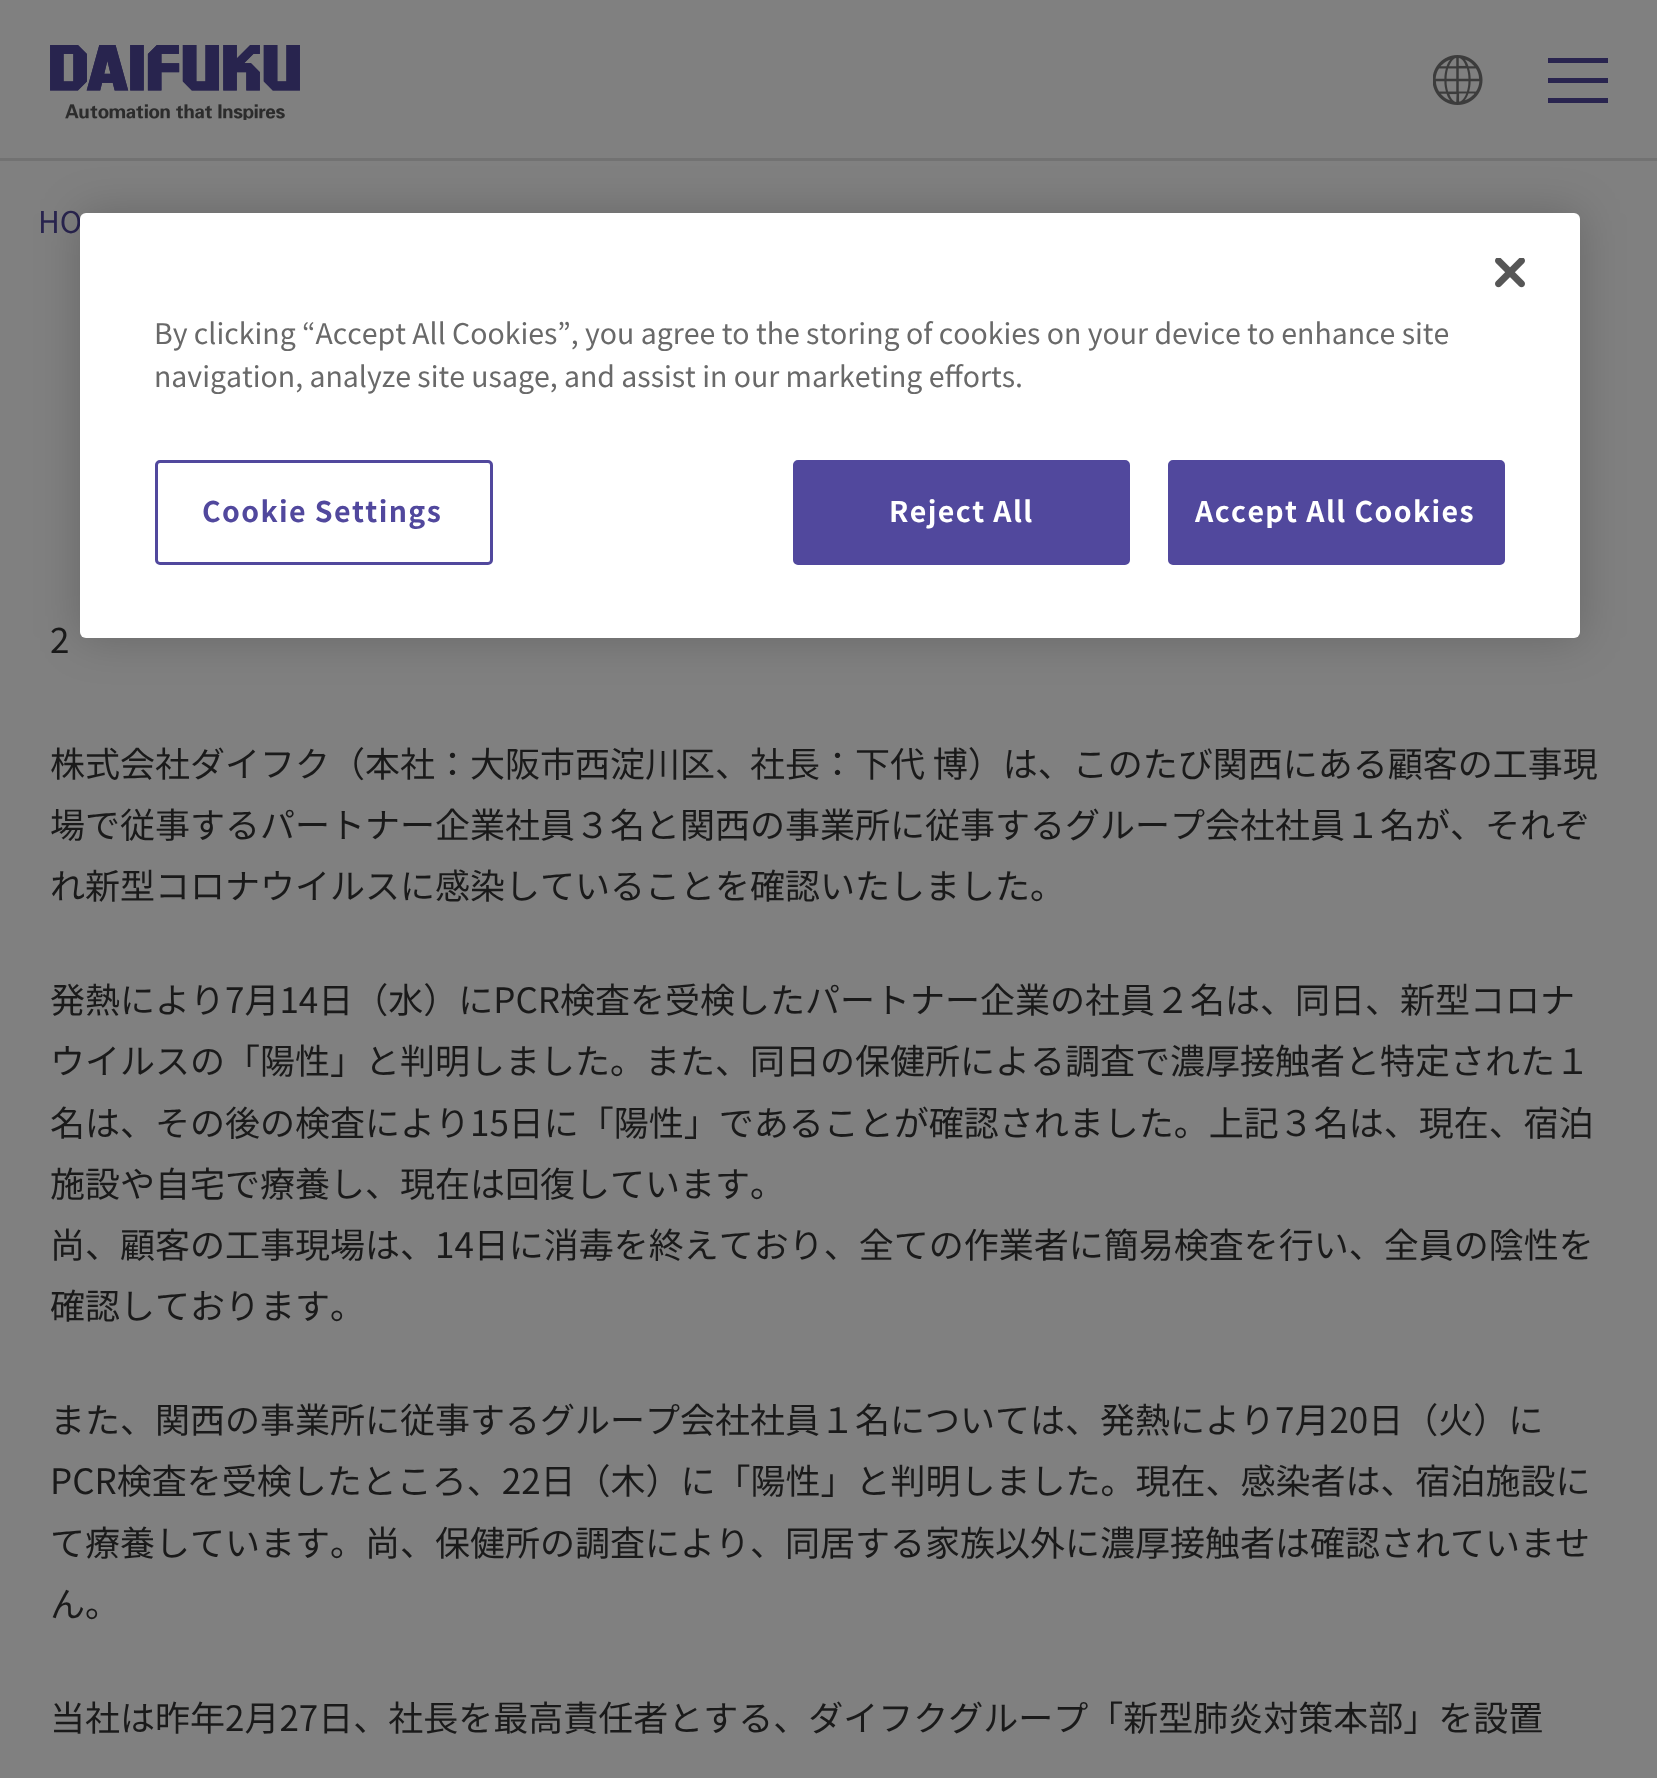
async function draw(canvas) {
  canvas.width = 1657
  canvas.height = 1778
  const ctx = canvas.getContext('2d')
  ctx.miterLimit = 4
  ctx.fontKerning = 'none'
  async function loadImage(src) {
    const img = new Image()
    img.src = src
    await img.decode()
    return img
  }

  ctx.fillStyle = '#808080'
  ctx.fillRect(0, 0, 1657, 1778)
  ctx.fillStyle = '#727272'
  ctx.fillRect(0, 158, 1657, 3)
  ctx.drawImage(await loadImage('image0.png'), 50, 45, 250, 75)
  ctx.drawImage(await loadImage('image1.png'), 1433, 55, 50, 50)
  ctx.fillStyle = '#29244f'
  ctx.fillRect(1548, 58, 60, 5)
  ctx.fillRect(1548, 78, 60, 5)
  ctx.fillRect(1548, 98, 60, 5)
  ctx.font = '30px Noto Sans CJK JP'
  ctx.fillText('HO', 38, 233)
  ctx.font = '35px Noto Sans CJK JP'
  ctx.fillStyle = '#1a1a1a'
  ctx.fillText('2', 50, 653)
  ctx.fillText('株式会社ダイフク（本社：大阪市西淀川区、社長：下代 博）は、このたび関西にある顧客の工事現', 50, 777)
  ctx.fillText('場で従事するパートナー企業社員３名と関西の事業所に従事するグループ会社社員１名が、それぞ', 50, 838)
  ctx.fillText('れ新型コロナウイルスに感染していることを確認いたしました。', 50, 899)
  ctx.fillText('発熱により7月14日（水）にPCR検査を受検したパートナー企業の社員２名は、同日、新型コロナ', 50, 1013)
  ctx.fillText('ウイルスの「陽性」と判明しました。また、同日の保健所による調査で濃厚接触者と特定された１', 50, 1074)
  ctx.fillText('名は、その後の検査により15日に「陽性」であることが確認されました。上記３名は、現在、宿泊', 50, 1136)
  ctx.fillText('施設や自宅で療養し、現在は回復しています。', 50, 1197)
  ctx.fillText('尚、顧客の工事現場は、14日に消毒を終えており、全ての作業者に簡易検査を行い、全員の陰性を', 50, 1258)
  ctx.fillText('確認しております。', 50, 1319)
  ctx.fillText('また、関西の事業所に従事するグループ会社社員１名については、発熱により7月20日（火）に', 50, 1433)
  ctx.fillText('PCR検査を受検したところ、22日（木）に「陽性」と判明しました。現在、感染者は、宿泊施設に', 50, 1494)
  ctx.fillText('て療養しています。尚、保健所の調査により', 50, 1556)
  ctx.fillText('、同居する家族以外に濃厚接触者は確認されていませ', 750, 1556)
  ctx.fillText('ん。', 50, 1617)
  ctx.fillText('当社は昨年2月27日、社長を最高責任者とする、ダイフクグループ「新型肺炎対策本部」を設置', 50, 1731)
  ctx.fillStyle = '#00000033'
  ctx.filter = 'blur(22.5px)'
  ctx.beginPath()
  ctx.roundRect(80, 213, 1500, 425, 6)
  ctx.fill()
  ctx.filter = 'none'
  ctx.fillStyle = '#fff'
  ctx.beginPath()
  ctx.roundRect(80, 213, 1500, 425, 6)
  ctx.fill()
  ctx.drawImage(await loadImage('image2.png'), 1495, 258, 30, 30)
  ctx.font = '28.45px Noto Sans CJK JP'
  ctx.fillStyle = '#696969'
  ctx.fillText('By clicking “Accept All Cookies”,', 154, 344)
  ctx.fillText('you agree to the storing of cookies on your device to enhance site', 585, 344)
  ctx.fillText('navigation, analyze site usage, and assist in our marketing efforts.', 154, 387)
  ctx.beginPath()
  ctx.roundRect(156.5, 461.5, 335, 102, 3.5)
  ctx.strokeStyle = '#51489d'
  ctx.lineWidth = 3
  ctx.stroke()
  ctx.letterSpacing = '1.4px'
  ctx.font = 'bold 28.45px Noto Sans CJK JP'
  ctx.fillStyle = '#51489d'
  ctx.fillText('Cookie Settings', 202, 522)
  ctx.beginPath()
  ctx.roundRect(794.5, 461.5, 334, 102, 3.5)
  ctx.fill()
  ctx.stroke()
  ctx.fillStyle = '#fff'
  ctx.fillText('Reject All', 889, 522)
  ctx.fillStyle = '#51489d'
  ctx.beginPath()
  ctx.roundRect(1169.5, 461.5, 334, 102, 3.5)
  ctx.fill()
  ctx.stroke()
  ctx.fillStyle = '#fff'
  ctx.fillText('Accept All Cookies', 1195, 522)
}

draw(document.querySelector('canvas'))
